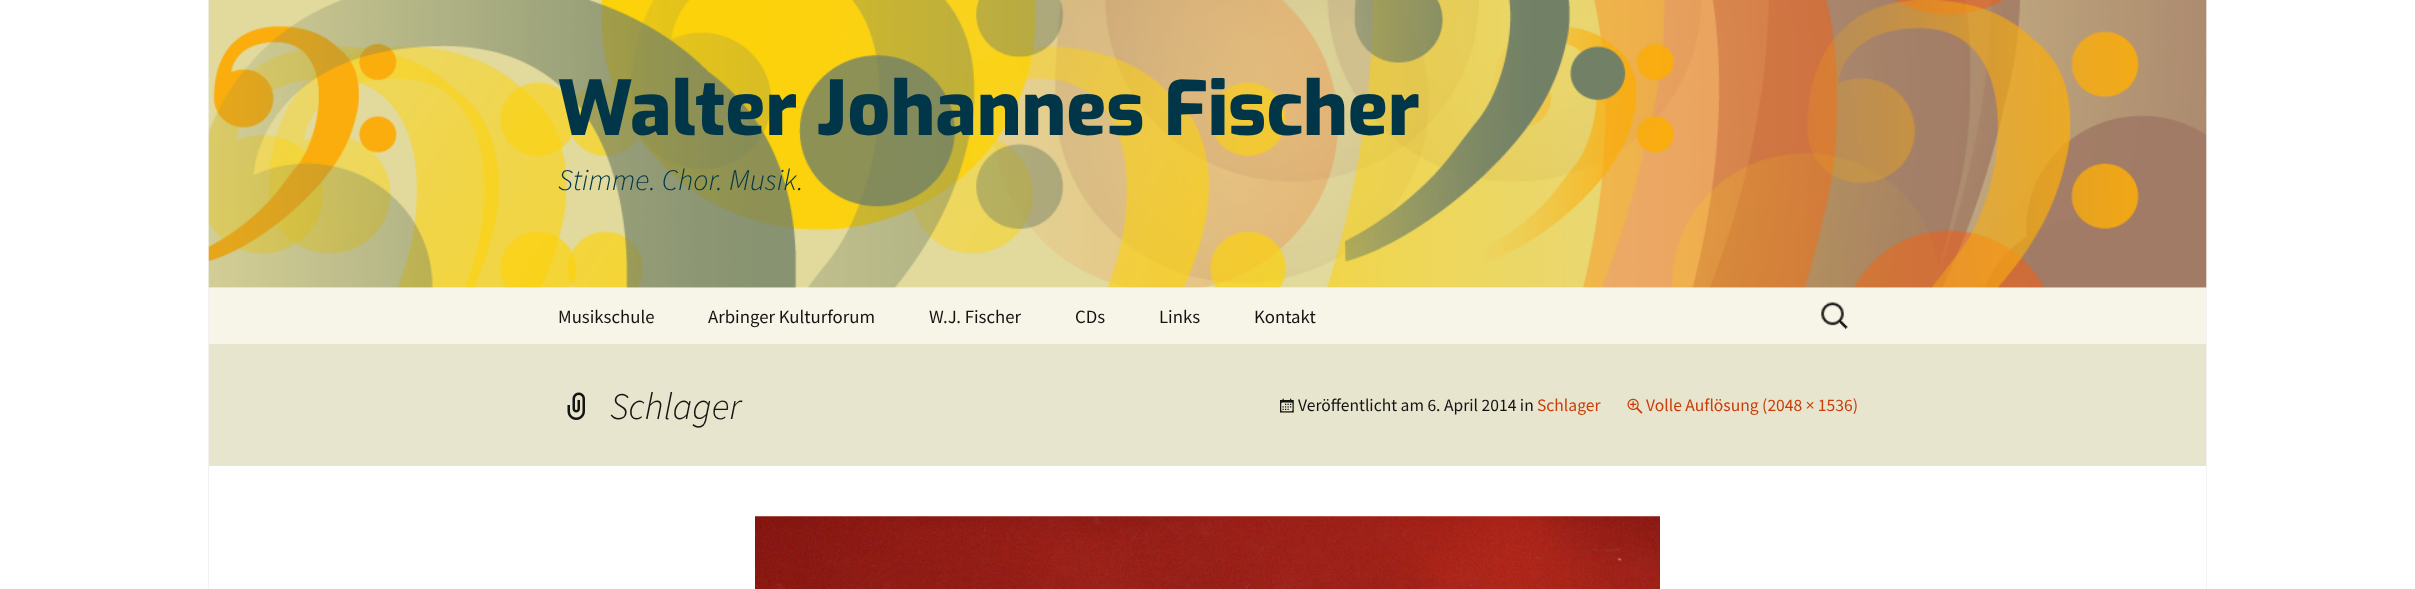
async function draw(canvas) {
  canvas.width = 2415
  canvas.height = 589
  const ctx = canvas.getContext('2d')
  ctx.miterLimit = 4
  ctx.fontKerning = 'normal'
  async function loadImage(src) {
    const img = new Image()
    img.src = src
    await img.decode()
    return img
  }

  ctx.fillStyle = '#fff'
  ctx.fillRect(0, 0, 2415, 589)
  ctx.fillStyle = '#f2f2f2'
  ctx.fillRect(2206, 0, 1, 589)
  ctx.fillRect(208, 0, 1, 589)
  ctx.drawImage(await loadImage('image0.png'), 208, 0, 1999, 288)
  ctx.font = '800 75px Exo'
  ctx.fillStyle = '#003647'
  ctx.fillText('Walter Johannes Fischer', 558, 135)
  ctx.font = 'italic 300 30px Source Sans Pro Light'
  ctx.fillText('Stimme. Chor. Musik.', 558, 190)
  ctx.fillStyle = '#f7f5e7'
  ctx.fillRect(209, 288, 1997, 56)
  ctx.font = '18.75px Source Sans Pro'
  ctx.fillStyle = '#141412'
  ctx.fillText('Musikschule', 558, 323)
  ctx.fillText('Arbinger Kulturforum', 708, 323)
  ctx.fillText('W.J. Fischer', 929, 323)
  ctx.fillText('CDs', 1075, 323)
  ctx.fillText('Links', 1159, 323)
  ctx.fillText('Kontakt', 1254, 323)
  ctx.drawImage(await loadImage('image1.png'), 1821, 302, 27, 27)
  ctx.fillStyle = '#e8e5ce'
  ctx.fillRect(209, 344, 1997, 122)
  ctx.drawImage(await loadImage('image2.png'), 567, 392, 18, 28)
  ctx.font = 'italic 300 37.5px Source Sans Pro Light'
  ctx.fillStyle = '#141412'
  ctx.fillText('Schlager', 610, 419)
  ctx.drawImage(await loadImage('image3.png'), 1280, 398, 14, 15)
  ctx.font = '17.5px Source Sans Pro'
  ctx.fillText('Veröffentlicht am 6. April 2014 in', 1298, 411)
  ctx.fillStyle = '#ca3c08'
  ctx.fillText('Schlager', 1537, 411)
  ctx.drawImage(await loadImage('image4.png'), 1627, 398, 16, 16)
  ctx.fillText('Volle Auflösung (2048 × 1536)', 1646, 411)
  ctx.drawImage(await loadImage('image5.png'), 755, 516, 905, 73)
}

draw(document.querySelector('canvas'))
